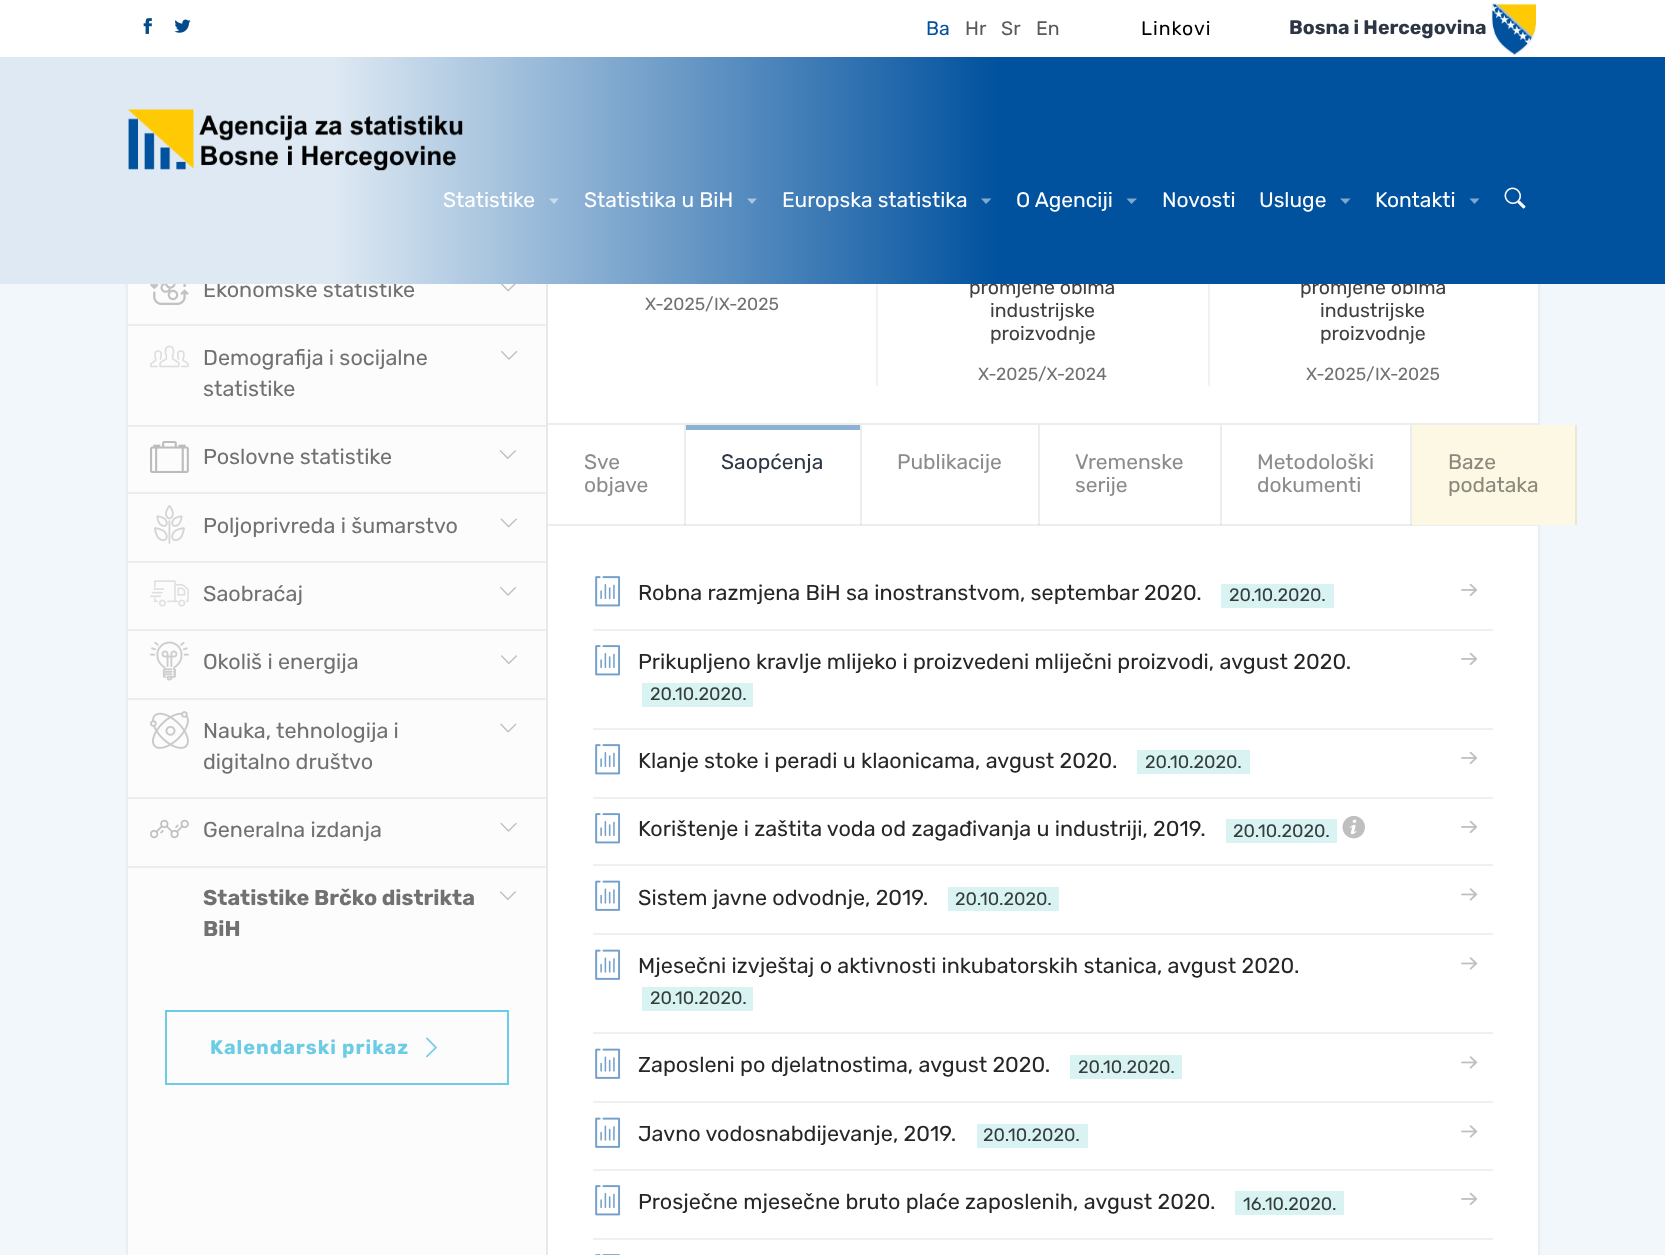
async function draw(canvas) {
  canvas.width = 1665
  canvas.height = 1255
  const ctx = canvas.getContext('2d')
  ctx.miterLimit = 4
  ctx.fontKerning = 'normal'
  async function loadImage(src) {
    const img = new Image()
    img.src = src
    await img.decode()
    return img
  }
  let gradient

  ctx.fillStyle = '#f2f7fb'
  ctx.fillRect(0, 0, 1665, 1255)
  ctx.fillStyle = '#fff'
  ctx.fillRect(0, 0, 1665, 57)
  ctx.drawImage(await loadImage('image0.png'), 143, 18, 9, 16)
  ctx.drawImage(await loadImage('image1.png'), 174, 19, 17, 14)
  ctx.font = '19.5px Rubik'
  ctx.fillStyle = '#00519e'
  ctx.fillText('Ba', 926, 35)
  ctx.fillStyle = '#595959'
  ctx.fillText('Hr', 965, 35)
  ctx.fillText('Sr', 1001, 35)
  ctx.fillText('En', 1036, 35)
  ctx.letterSpacing = '1px'
  ctx.fillStyle = '#000'
  ctx.fillText('Linkovi', 1141, 35)
  ctx.letterSpacing = '0px'
  ctx.font = 'bold 19.5px Rubik'
  ctx.fillStyle = '#2d3644'
  ctx.fillText('Bosna i Hercegovina', 1289, 34)
  ctx.drawImage(await loadImage('image2.png'), 1491, 3, 45, 53)
  ctx.fillStyle = '#0000001a'
  ctx.filter = 'blur(2px)'
  ctx.beginPath()
  ctx.rect(128, 174, 1410, 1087)
  ctx.fill()
  ctx.filter = 'none'
  ctx.fillStyle = '#fcfcfc'
  ctx.fillRect(128, 284, 418, 971)
  ctx.font = '21.6px Rubik'
  ctx.fillStyle = '#717171'
  ctx.fillText('Ekonomske statistike', 203, 297)
  ctx.fillStyle = '#fff'
  ctx.fillRect(548, 284, 990, 971)
  ctx.font = '19.5px Rubik'
  ctx.fillStyle = '#404040'
  ctx.fillText('promjene obima', 969, 294)
  ctx.fillText('promjene obima', 1300, 294)
  gradient = ctx.createLinearGradient(0, 170, 1665, 170)
  gradient.addColorStop(0.2, '#dee9f3')
  gradient.addColorStop(0.6, '#00519e')
  ctx.fillStyle = gradient
  ctx.fillRect(0, 57, 1665, 227)
  ctx.drawImage(await loadImage('image3.png'), 128, 109, 335, 62)
  ctx.font = '21px Rubik'
  ctx.fillStyle = '#fff'
  ctx.fillText('Statistike', 443, 207)
  ctx.fillStyle = '#ffffff80'
  ctx.beginPath()
  ctx.moveTo(549, 198.5)
  ctx.lineTo(559, 198.5)
  ctx.lineTo(554, 204)
  ctx.closePath()
  ctx.fill()
  ctx.fillStyle = '#fff'
  ctx.fillText('Statistika u BiH', 584, 207)
  ctx.fillStyle = '#ffffff80'
  ctx.beginPath()
  ctx.moveTo(747, 198.5)
  ctx.lineTo(757, 198.5)
  ctx.lineTo(752, 204)
  ctx.closePath()
  ctx.fill()
  ctx.fillStyle = '#fff'
  ctx.fillText('Europska statistika', 782, 207)
  ctx.fillStyle = '#ffffff80'
  ctx.beginPath()
  ctx.moveTo(981, 198.5)
  ctx.lineTo(991.5, 198.5)
  ctx.lineTo(986, 204)
  ctx.closePath()
  ctx.fill()
  ctx.fillStyle = '#fff'
  ctx.fillText('O Agenciji', 1016, 207)
  ctx.fillStyle = '#80a8cf'
  ctx.beginPath()
  ctx.moveTo(1126.5, 198.5)
  ctx.lineTo(1137, 198.5)
  ctx.lineTo(1131.5, 204)
  ctx.closePath()
  ctx.fill()
  ctx.fillStyle = '#fff'
  ctx.fillText('Novosti', 1162, 207)
  ctx.fillText('Usluge', 1259, 207)
  ctx.fillStyle = '#80a8cf'
  ctx.beginPath()
  ctx.moveTo(1340, 198.5)
  ctx.lineTo(1350.5, 198.5)
  ctx.lineTo(1345.5, 204)
  ctx.closePath()
  ctx.fill()
  ctx.fillStyle = '#fff'
  ctx.fillText('Kontakti', 1375, 207)
  ctx.fillStyle = '#80a8cf'
  ctx.beginPath()
  ctx.moveTo(1469.5, 198.5)
  ctx.lineTo(1479.5, 198.5)
  ctx.lineTo(1474.5, 204)
  ctx.closePath()
  ctx.fill()
  ctx.drawImage(await loadImage('image4.png'), 1504, 187, 22, 22)
  ctx.fillStyle = '#ededed'
  ctx.fillRect(1410, 425, 2, 100)
  ctx.fillRect(1220, 425, 2, 100)
  ctx.fillRect(1038, 425, 2, 100)
  ctx.fillRect(860, 425, 2, 100)
  ctx.fillRect(684, 425, 2, 100)
  ctx.fillStyle = '#e8e8e8'
  ctx.fillRect(546, 284, 2, 971)
  ctx.drawImage(await loadImage('image5.png'), 150, 284, 39, 21)
  ctx.drawImage(await loadImage('image6.png'), 501, 284, 15, 8)
  ctx.fillStyle = '#ededed'
  ctx.fillRect(128, 324, 418, 2)
  ctx.drawImage(await loadImage('image7.png'), 150, 345, 39, 23)
  ctx.font = '21.6px Rubik'
  ctx.fillStyle = '#717171'
  ctx.fillText('Demografija i socijalne', 203, 365)
  ctx.drawImage(await loadImage('image8.png'), 501, 351, 17, 9)
  ctx.fillText('statistike', 203, 396)
  ctx.fillStyle = '#ededed'
  ctx.fillRect(128, 425, 418, 2)
  ctx.drawImage(await loadImage('image9.png'), 150, 441, 39, 32)
  ctx.fillStyle = '#717171'
  ctx.fillText('Poslovne statistike', 203, 464)
  ctx.drawImage(await loadImage('image10.png'), 499, 450, 17, 9)
  ctx.fillStyle = '#ededed'
  ctx.fillRect(128, 492, 418, 2)
  ctx.drawImage(await loadImage('image11.png'), 154, 505, 31, 39)
  ctx.fillStyle = '#717171'
  ctx.fillText('Poljoprivreda i šumarstvo', 203, 533)
  ctx.drawImage(await loadImage('image12.png'), 500, 518, 17, 10)
  ctx.fillStyle = '#ededed'
  ctx.fillRect(128, 561, 418, 2)
  ctx.drawImage(await loadImage('image13.png'), 150, 580, 39, 27)
  ctx.fillStyle = '#717171'
  ctx.fillText('Saobraćaj', 203, 601)
  ctx.drawImage(await loadImage('image14.png'), 500, 587, 17, 9)
  ctx.fillStyle = '#ededed'
  ctx.fillRect(128, 629, 418, 2)
  ctx.drawImage(await loadImage('image15.png'), 150, 641, 39, 40)
  ctx.fillStyle = '#717171'
  ctx.fillText('Okoliš i energija', 203, 669)
  ctx.drawImage(await loadImage('image16.png'), 501, 655, 16, 9)
  ctx.fillStyle = '#ededed'
  ctx.fillRect(128, 698, 418, 2)
  ctx.drawImage(await loadImage('image17.png'), 150, 711, 39, 38)
  ctx.fillStyle = '#717171'
  ctx.fillText('Nauka, tehnologija i', 203, 738)
  ctx.drawImage(await loadImage('image18.png'), 500, 723, 17, 10)
  ctx.fillText('digitalno društvo', 203, 769)
  ctx.fillStyle = '#ededed'
  ctx.fillRect(128, 797, 418, 2)
  ctx.drawImage(await loadImage('image19.png'), 150, 819, 39, 20)
  ctx.fillStyle = '#717171'
  ctx.fillText('Generalna izdanja', 203, 837)
  ctx.drawImage(await loadImage('image20.png'), 500, 823, 17, 9)
  ctx.fillStyle = '#ededed'
  ctx.fillRect(128, 866, 418, 2)
  ctx.font = 'bold 21.6px Rubik'
  ctx.fillStyle = '#717171'
  ctx.fillText('Statistike Brčko distrikta', 203, 905)
  ctx.drawImage(await loadImage('image21.png'), 500, 891, 16, 9)
  ctx.fillText('BiH', 203, 936)
  ctx.strokeStyle = '#6ccce5'
  ctx.lineWidth = 2
  ctx.strokeRect(166, 1011, 342, 73)
  ctx.letterSpacing = '1px'
  ctx.font = 'bold 19.75px Rubik'
  ctx.fillStyle = '#6ccce5'
  ctx.fillText('Kalendarski prikaz', 210, 1054)
  ctx.drawImage(await loadImage('image22.png'), 426, 1037, 11, 21)
  ctx.letterSpacing = '0px'
  ctx.font = '17.5px Rubik'
  ctx.fillStyle = '#717171'
  ctx.fillText('X-2025/IX-2025', 645, 310)
  ctx.fillStyle = '#f2f2f2'
  ctx.fillRect(876, 284, 2, 102)
  ctx.font = '19.5px Rubik'
  ctx.fillStyle = '#404040'
  ctx.fillText('industrijske', 990, 317)
  ctx.fillText('proizvodnje', 990, 340)
  ctx.font = '17.5px Rubik'
  ctx.fillStyle = '#717171'
  ctx.fillText('X-2025/X-2024', 978, 380)
  ctx.fillStyle = '#f2f2f2'
  ctx.fillRect(1208, 284, 2, 102)
  ctx.font = '19.5px Rubik'
  ctx.fillStyle = '#404040'
  ctx.fillText('industrijske', 1320, 317)
  ctx.fillText('proizvodnje', 1320, 340)
  ctx.font = '17.5px Rubik'
  ctx.fillStyle = '#717171'
  ctx.fillText('X-2025/IX-2025', 1306, 380)
  ctx.fillStyle = '#ededed'
  ctx.fillRect(548, 423, 990, 2)
  ctx.fillRect(548, 524, 990, 2)
  ctx.fillStyle = '#dcdcdc'
  ctx.fillRect(1410, 524, 2, 1)
  ctx.fillRect(1220, 524, 2, 1)
  ctx.fillRect(1038, 524, 2, 1)
  ctx.fillRect(860, 524, 2, 1)
  ctx.fillRect(684, 524, 2, 1)
  ctx.font = '21px Rubik'
  ctx.fillStyle = '#8c8c8c'
  ctx.fillText('Sve', 584, 469)
  ctx.fillText('objave', 584, 492)
  ctx.fillStyle = '#8cb1d3'
  ctx.fillRect(686, 425, 174, 5)
  ctx.fillStyle = '#2d3644'
  ctx.fillText('Saopćenja', 721, 469)
  ctx.fillStyle = '#8c8c8c'
  ctx.fillText('Publikacije', 897, 469)
  ctx.fillText('Vremenske', 1075, 469)
  ctx.fillText('serije', 1075, 492)
  ctx.fillText('Metodološki', 1257, 469)
  ctx.fillText('dokumenti', 1257, 492)
  ctx.fillStyle = '#fcf8e3'
  ctx.fillRect(1412, 425, 163, 100)
  ctx.fillStyle = '#eae7d3'
  ctx.fillRect(1575, 425, 2, 100)
  ctx.fillStyle = '#8b887d'
  ctx.fillText('Baze', 1448, 469)
  ctx.fillText('podataka', 1448, 492)
  ctx.drawImage(await loadImage('image23.png'), 595, 576, 26, 31)
  ctx.font = '21.6px Rubik'
  ctx.fillStyle = '#262626'
  ctx.fillText('Robna razmjena BiH sa inostranstvom, septembar 2020.', 638, 600)
  ctx.fillStyle = '#d9f3f3'
  ctx.fillRect(1221, 584, 113, 24)
  ctx.font = '18px Rubik'
  ctx.fillStyle = '#363d3d'
  ctx.fillText('20.10.2020.', 1229, 601)
  ctx.drawImage(await loadImage('image24.png'), 1461, 583, 16, 13)
  ctx.fillStyle = '#f0f0f0'
  ctx.fillRect(593, 629, 900, 2)
  ctx.drawImage(await loadImage('image23.png'), 595, 645, 26, 31)
  ctx.font = '21.6px Rubik'
  ctx.fillStyle = '#262626'
  ctx.fillText('Prikupljeno kravlje mlijeko i proizvedeni mliječni proizvodi, avgust 2020.', 638, 669)
  ctx.drawImage(await loadImage('image24.png'), 1461, 652, 16, 13)
  ctx.fillStyle = '#d9f3f3'
  ctx.fillRect(642, 683, 111, 24)
  ctx.font = '18px Rubik'
  ctx.fillStyle = '#363d3d'
  ctx.fillText('20.10.2020.', 650, 700)
  ctx.fillStyle = '#f0f0f0'
  ctx.fillRect(593, 728, 900, 2)
  ctx.drawImage(await loadImage('image23.png'), 595, 744, 26, 31)
  ctx.font = '21.6px Rubik'
  ctx.fillStyle = '#262626'
  ctx.fillText('Klanje stoke i peradi u klaonicama, avgust 2020.', 638, 768)
  ctx.fillStyle = '#d9f3f3'
  ctx.fillRect(1137, 750, 113, 24)
  ctx.font = '18px Rubik'
  ctx.fillStyle = '#363d3d'
  ctx.fillText('20.10.2020.', 1145, 768)
  ctx.drawImage(await loadImage('image24.png'), 1461, 751, 16, 13)
  ctx.fillStyle = '#f0f0f0'
  ctx.fillRect(593, 797, 900, 2)
  ctx.drawImage(await loadImage('image23.png'), 595, 813, 26, 31)
  ctx.font = '21.6px Rubik'
  ctx.fillStyle = '#262626'
  ctx.fillText('Korištenje i zaštita voda od zagađivanja u industriji, 2019.', 638, 836)
  ctx.fillStyle = '#d9f3f3'
  ctx.fillRect(1226, 819, 111, 24)
  ctx.font = '18px Rubik'
  ctx.fillStyle = '#363d3d'
  ctx.fillText('20.10.2020.', 1233, 837)
  ctx.drawImage(await loadImage('image25.png'), 1342, 816, 23, 23)
  ctx.drawImage(await loadImage('image24.png'), 1461, 820, 16, 13)
  ctx.fillStyle = '#f0f0f0'
  ctx.fillRect(593, 864, 900, 2)
  ctx.drawImage(await loadImage('image26.png'), 595, 880, 26, 31)
  ctx.font = '21.6px Rubik'
  ctx.fillStyle = '#262626'
  ctx.fillText('Sistem javne odvodnje, 2019.', 638, 905)
  ctx.fillStyle = '#d9f3f3'
  ctx.fillRect(948, 887, 111, 24)
  ctx.font = '18px Rubik'
  ctx.fillStyle = '#363d3d'
  ctx.fillText('20.10.2020.', 955, 905)
  ctx.drawImage(await loadImage('image27.png'), 1461, 888, 17, 13)
  ctx.fillStyle = '#f0f0f0'
  ctx.fillRect(593, 933, 900, 2)
  ctx.drawImage(await loadImage('image26.png'), 595, 949, 26, 31)
  ctx.font = '21.6px Rubik'
  ctx.fillStyle = '#262626'
  ctx.fillText('Mjesečni izvještaj o aktivnosti inkubatorskih stanica, avgust 2020.', 638, 973)
  ctx.drawImage(await loadImage('image27.png'), 1461, 957, 17, 13)
  ctx.fillStyle = '#d9f3f3'
  ctx.fillRect(642, 987, 111, 24)
  ctx.font = '18px Rubik'
  ctx.fillStyle = '#363d3d'
  ctx.fillText('20.10.2020.', 650, 1004)
  ctx.fillStyle = '#f0f0f0'
  ctx.fillRect(593, 1032, 900, 2)
  ctx.drawImage(await loadImage('image26.png'), 595, 1048, 26, 31)
  ctx.font = '21.6px Rubik'
  ctx.fillStyle = '#262626'
  ctx.fillText('Zaposleni po djelatnostima, avgust 2020.', 638, 1072)
  ctx.fillStyle = '#d9f3f3'
  ctx.fillRect(1070, 1055, 112, 24)
  ctx.font = '18px Rubik'
  ctx.fillStyle = '#363d3d'
  ctx.fillText('20.10.2020.', 1078, 1073)
  ctx.drawImage(await loadImage('image27.png'), 1461, 1056, 17, 13)
  ctx.fillStyle = '#f0f0f0'
  ctx.fillRect(593, 1101, 900, 2)
  ctx.drawImage(await loadImage('image26.png'), 595, 1117, 26, 31)
  ctx.font = '21.6px Rubik'
  ctx.fillStyle = '#262626'
  ctx.fillText('Javno vodosnabdijevanje, 2019.', 638, 1141)
  ctx.fillStyle = '#d9f3f3'
  ctx.fillRect(977, 1124, 111, 24)
  ctx.font = '18px Rubik'
  ctx.fillStyle = '#363d3d'
  ctx.fillText('20.10.2020.', 983, 1141)
  ctx.drawImage(await loadImage('image27.png'), 1461, 1125, 17, 13)
  ctx.fillStyle = '#f0f0f0'
  ctx.fillRect(593, 1169, 900, 2)
  ctx.drawImage(await loadImage('image23.png'), 595, 1185, 26, 31)
  ctx.font = '21.6px Rubik'
  ctx.fillStyle = '#262626'
  ctx.fillText('Prosječne mjesečne bruto plaće zaposlenih, avgust 2020.', 638, 1209)
  ctx.fillStyle = '#d9f3f3'
  ctx.fillRect(1235, 1191, 109, 24)
  ctx.font = '18px Rubik'
  ctx.fillStyle = '#363d3d'
  ctx.fillText('16.10.2020.', 1243, 1210)
  ctx.drawImage(await loadImage('image24.png'), 1461, 1192, 16, 13)
  ctx.fillStyle = '#f0f0f0'
  ctx.fillRect(593, 1238, 900, 2)
  ctx.drawImage(await loadImage('image28.png'), 595, 1254, 25, 1)
}

draw(document.querySelector('canvas'))
